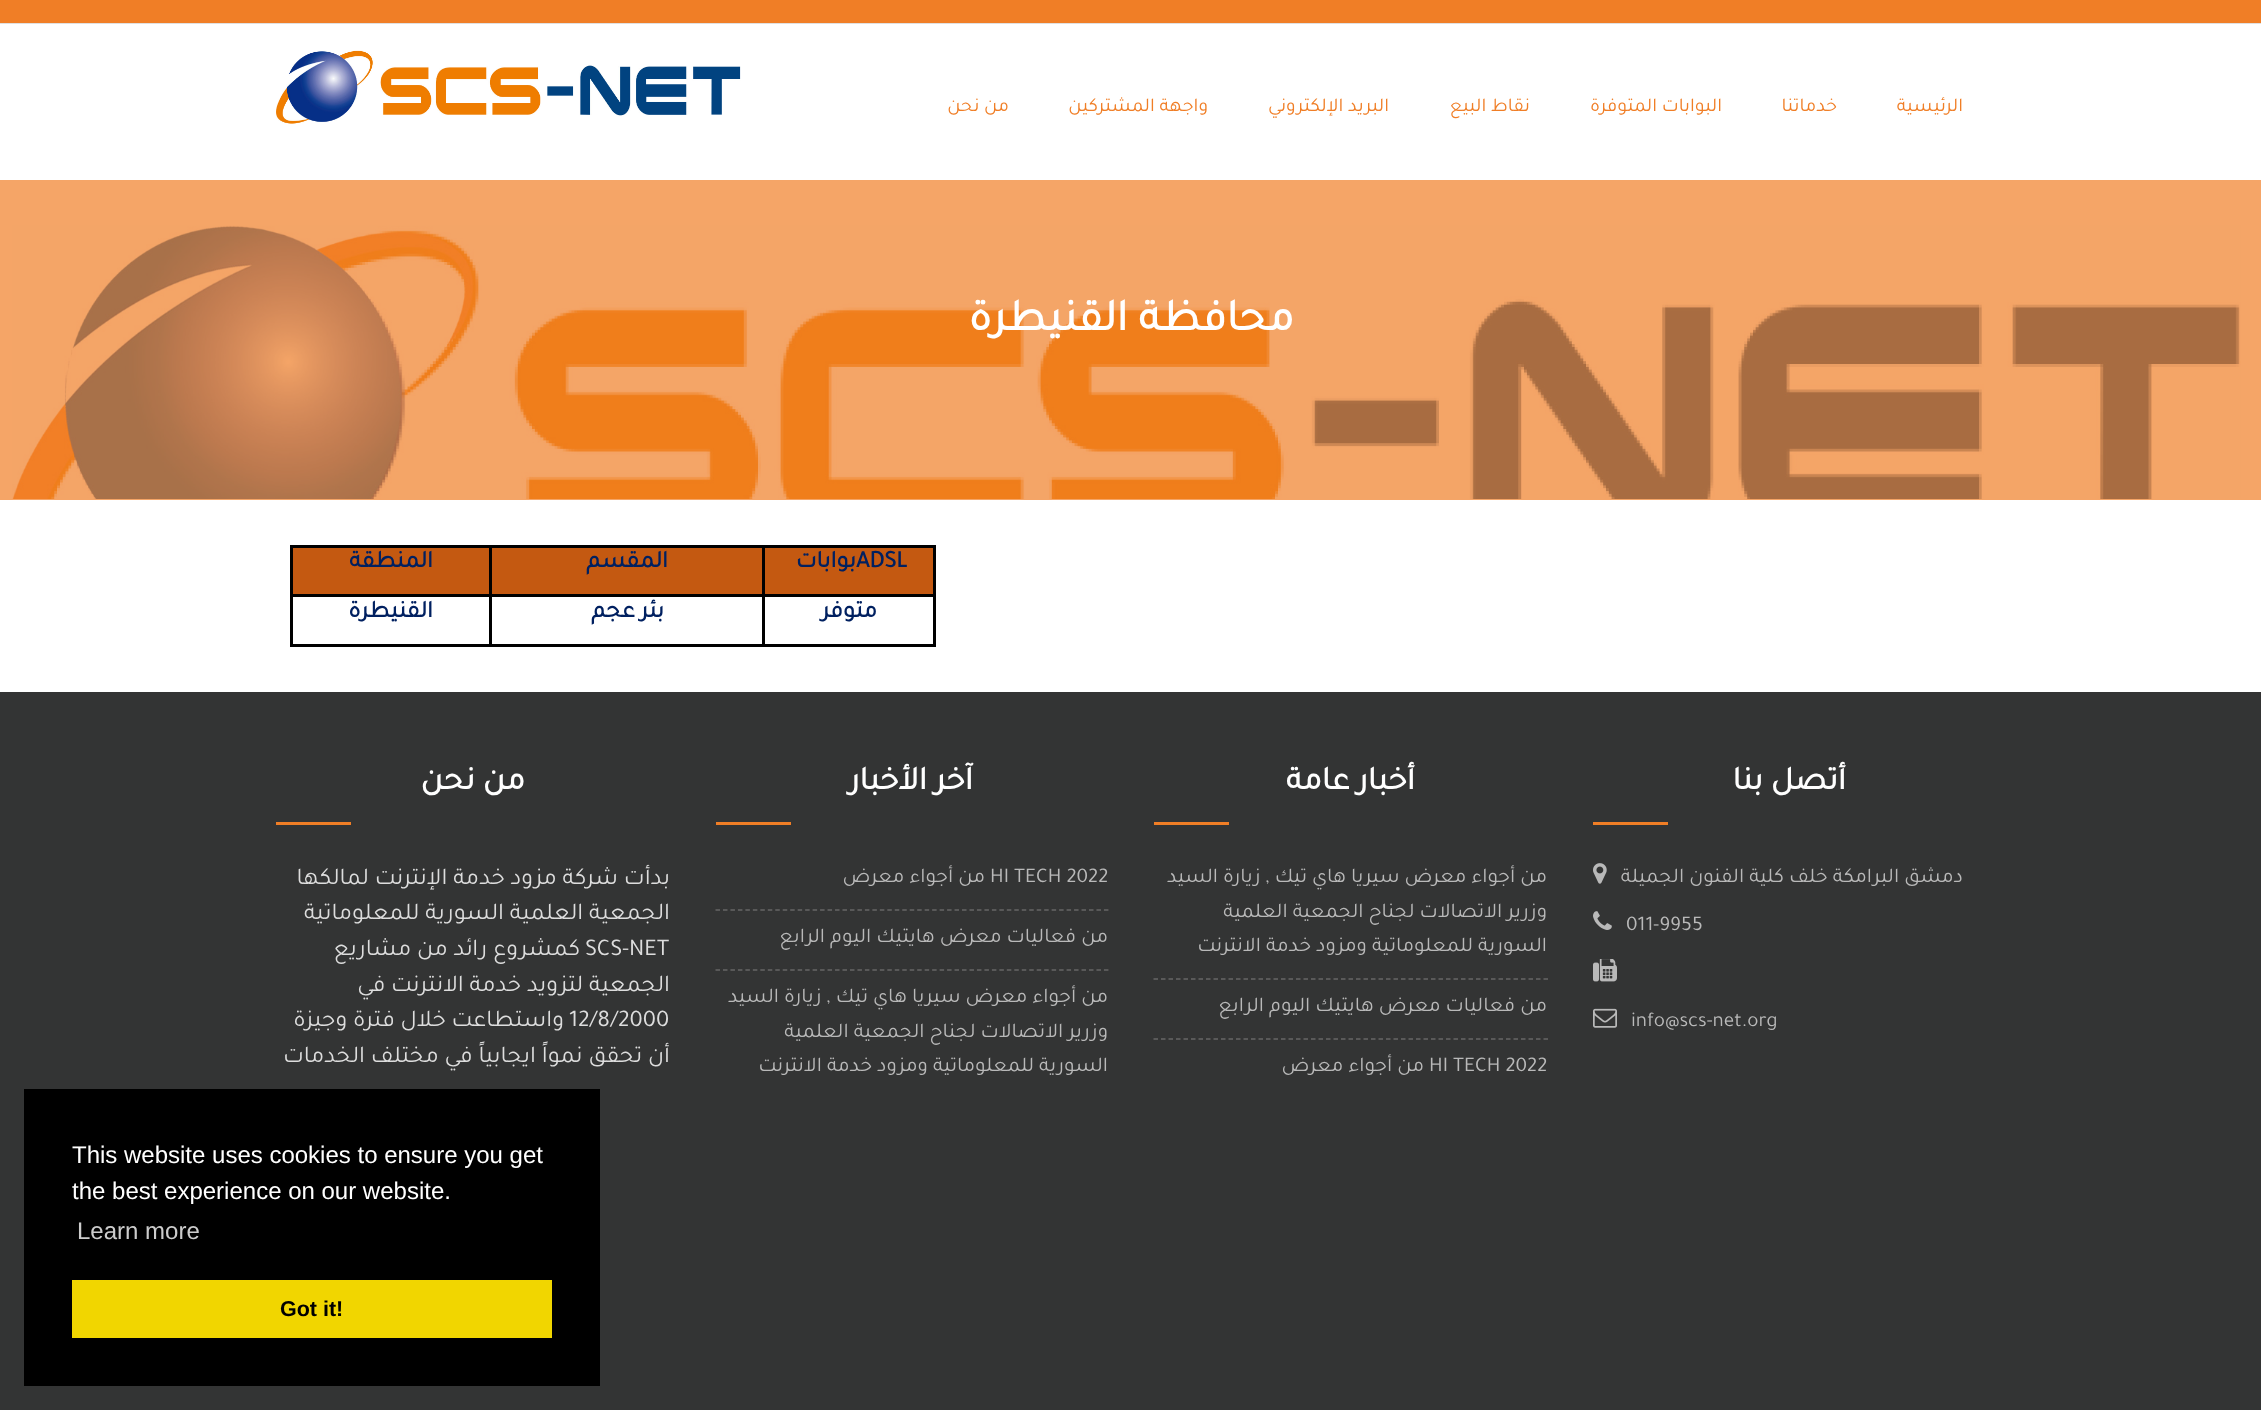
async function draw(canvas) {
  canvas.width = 2261
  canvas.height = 1410
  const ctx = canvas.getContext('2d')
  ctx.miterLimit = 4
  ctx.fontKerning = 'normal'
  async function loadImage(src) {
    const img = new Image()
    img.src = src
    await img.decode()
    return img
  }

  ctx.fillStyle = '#fff'
  ctx.fillRect(0, 0, 2261, 1410)
  ctx.fillStyle = '#f5a567'
  ctx.fillRect(0, 180, 2261, 320)
  ctx.fillStyle = '#f07e26'
  ctx.fillRect(0, 0, 2261, 23)
  ctx.fillStyle = '#e0e0e0'
  ctx.fillRect(0, 23, 2261, 1)
  ctx.direction = 'rtl'
  ctx.font = '19.5px Tajawal'
  ctx.fillStyle = '#f07e26'
  ctx.fillText('الرئيسية', 1963, 111)
  ctx.fillText('خدماتنا', 1837, 111)
  ctx.fillText('البوابات المتوفرة', 1722, 111)
  ctx.fillText('نقاط البيع', 1530, 111)
  ctx.fillText('البريد الإلكتروني', 1389, 111)
  ctx.fillText('واجهة المشتركين', 1208, 111)
  ctx.fillText('من نحن', 1009, 111)
  ctx.drawImage(await loadImage('image0.png'), 276, 50, 465, 74)
  ctx.drawImage(await loadImage('image1.png'), 12, 225, 2229, 274)
  ctx.font = 'bold 45px Tajawal'
  ctx.fillStyle = '#fff'
  ctx.fillText('محافظة القنيطرة', 1294, 330)
  ctx.fillStyle = '#c45911'
  ctx.fillRect(765, 548, 168, 46)
  ctx.fillStyle = '#000'
  ctx.fillRect(290, 545, 646, 3)
  ctx.fillRect(933, 594, 3, 53)
  ctx.fillRect(933, 545, 3, 52)
  ctx.fillRect(762, 644, 174, 3)
  ctx.fillRect(762, 594, 3, 53)
  ctx.fillRect(762, 594, 174, 3)
  ctx.direction = 'ltr'
  ctx.font = 'bold 24px Tajawal'
  ctx.fillStyle = '#002060'
  ctx.fillText('ADSL', 856, 567)
  ctx.direction = 'rtl'
  ctx.fillText('بوابات', 856, 567)
  ctx.fillStyle = '#c45911'
  ctx.fillRect(492, 548, 270, 46)
  ctx.fillStyle = '#000'
  ctx.fillRect(762, 545, 3, 52)
  ctx.fillRect(489, 644, 276, 3)
  ctx.fillRect(489, 594, 3, 53)
  ctx.fillRect(489, 594, 276, 3)
  ctx.fillStyle = '#002060'
  ctx.fillText('المقسم', 668, 567)
  ctx.fillStyle = '#c45911'
  ctx.fillRect(293, 548, 196, 46)
  ctx.fillStyle = '#000'
  ctx.fillRect(489, 545, 3, 52)
  ctx.fillRect(290, 644, 202, 3)
  ctx.fillRect(290, 594, 3, 53)
  ctx.fillRect(290, 594, 202, 3)
  ctx.fillRect(290, 545, 3, 52)
  ctx.fillStyle = '#002060'
  ctx.fillText('المنطقة', 433, 567)
  ctx.fillText('متوفر', 877, 617)
  ctx.fillText('بئر', 664, 617)
  ctx.fillText('عجم', 635, 617)
  ctx.fillText('القنيطرة', 433, 617)
  ctx.fillStyle = '#333434'
  ctx.fillRect(0, 692, 2261, 718)
  ctx.font = 'bold 33px Tajawal'
  ctx.fillStyle = '#fff'
  ctx.fillText('أتصل بنا', 1846, 789)
  ctx.fillStyle = '#f07e26'
  ctx.fillRect(1593, 822, 75, 3)
  ctx.font = '21px Tajawal'
  ctx.fillStyle = '#b9b9b9'
  ctx.fillText('دمشق البرامكة خلف كلية الفنون الجميلة', 1963, 882)
  ctx.drawImage(await loadImage('image2.png'), 1593, 863, 14, 21)
  ctx.direction = 'ltr'
  ctx.fillText('011-9955', 1626, 930)
  ctx.drawImage(await loadImage('image3.png'), 1593, 911, 19, 19)
  ctx.drawImage(await loadImage('image4.png'), 1593, 959, 24, 23)
  ctx.fillText('info@scs-net.org', 1631, 1026)
  ctx.drawImage(await loadImage('image5.png'), 1593, 1008, 24, 20)
  ctx.direction = 'rtl'
  ctx.font = 'bold 33px Tajawal'
  ctx.fillStyle = '#fff'
  ctx.fillText('أخبار عامة', 1415, 789)
  ctx.fillStyle = '#f07e26'
  ctx.fillRect(1154, 822, 75, 3)
  ctx.beginPath()
  ctx.moveTo(1153.5, 979)
  ctx.lineTo(1548, 979)
  ctx.strokeStyle = '#676666'
  ctx.lineWidth = 1.5
  ctx.setLineDash([4.5, 3])
  ctx.stroke()
  ctx.font = '21px Tajawal'
  ctx.fillStyle = '#b9b9b9'
  ctx.fillText('من أجواء معرض سيريا هاي تيك , زيارة السيد', 1547, 882)
  ctx.fillText('وزرير الاتصالات لجناح الجمعية العلمية', 1547, 917)
  ctx.fillText('السورية للمعلوماتية ومزود خدمة الانترنت', 1547, 951)
  ctx.beginPath()
  ctx.moveTo(1153.5, 1039)
  ctx.lineTo(1548, 1039)
  ctx.stroke()
  ctx.fillText('من فعاليات معرض هايتيك اليوم الرابع', 1547, 1011)
  ctx.direction = 'ltr'
  ctx.fillText('HI TECH 2022', 1429, 1071)
  ctx.direction = 'rtl'
  ctx.fillText('من أجواء معرض', 1424, 1071)
  ctx.font = 'bold 33px Tajawal'
  ctx.fillStyle = '#fff'
  ctx.fillText('آخر الأخبار', 973, 789)
  ctx.fillStyle = '#f07e26'
  ctx.fillRect(716, 822, 75, 3)
  ctx.beginPath()
  ctx.moveTo(715.5, 910)
  ctx.lineTo(1108.5, 910)
  ctx.setLineDash([4.5, 2.97])
  ctx.stroke()
  ctx.direction = 'ltr'
  ctx.font = '21px Tajawal'
  ctx.fillStyle = '#b9b9b9'
  ctx.fillText('HI TECH 2022', 990, 882)
  ctx.direction = 'rtl'
  ctx.fillText('من أجواء معرض', 985, 882)
  ctx.beginPath()
  ctx.moveTo(715.5, 970)
  ctx.lineTo(1108.5, 970)
  ctx.stroke()
  ctx.fillText('من فعاليات معرض هايتيك اليوم الرابع', 1108, 942)
  ctx.fillText('من أجواء معرض سيريا هاي تيك , زيارة السيد', 1108, 1002)
  ctx.fillText('وزرير الاتصالات لجناح الجمعية العلمية', 1108, 1037)
  ctx.fillText('السورية للمعلوماتية ومزود خدمة الانترنت', 1108, 1071)
  ctx.font = 'bold 33px Tajawal'
  ctx.fillStyle = '#fff'
  ctx.fillText('من نحن', 525, 789)
  ctx.fillStyle = '#f07e26'
  ctx.fillRect(276, 822, 75, 3)
  ctx.font = '24px Tajawal'
  ctx.fillStyle = '#ddd'
  ctx.fillText('بدأت شركة مزود خدمة الإنترنت لمالكها', 670, 884)
  ctx.fillText('الجمعية العلمية السورية للمعلوماتية', 670, 919)
  ctx.direction = 'ltr'
  ctx.fillText('SCS-NET', 585, 955)
  ctx.direction = 'rtl'
  ctx.fillText('كمشروع رائد من مشاريع', 580, 955)
  ctx.fillText('الجمعية لتزويد خدمة الانترنت في', 670, 991)
  ctx.direction = 'ltr'
  ctx.fillText('12/8/2000', 569, 1026)
  ctx.direction = 'rtl'
  ctx.fillText('واستطاعت خلال فترة وجيزة', 564, 1026)
  ctx.fillText('أن تحقق نمواً ايجابياً في مختلف الخدمات', 670, 1062)
  ctx.fillStyle = '#000'
  ctx.fillRect(24, 1089, 576, 297)
  ctx.direction = 'ltr'
  ctx.font = '24px Liberation Sans'
  ctx.fillStyle = '#fff'
  ctx.fillText('This website uses cookies to ensure you get', 72, 1163)
  ctx.fillText('the best experience on our website.', 72, 1199)
  ctx.fillStyle = '#ccc'
  ctx.fillText('Learn more', 77, 1239)
  ctx.fillStyle = '#f1d600'
  ctx.fillRect(72, 1280, 480, 58)
  ctx.font = 'bold 21.5px Liberation Sans'
  ctx.fillStyle = '#000'
  ctx.fillText('Got it!', 280, 1316)
}

draw(document.querySelector('canvas'))
